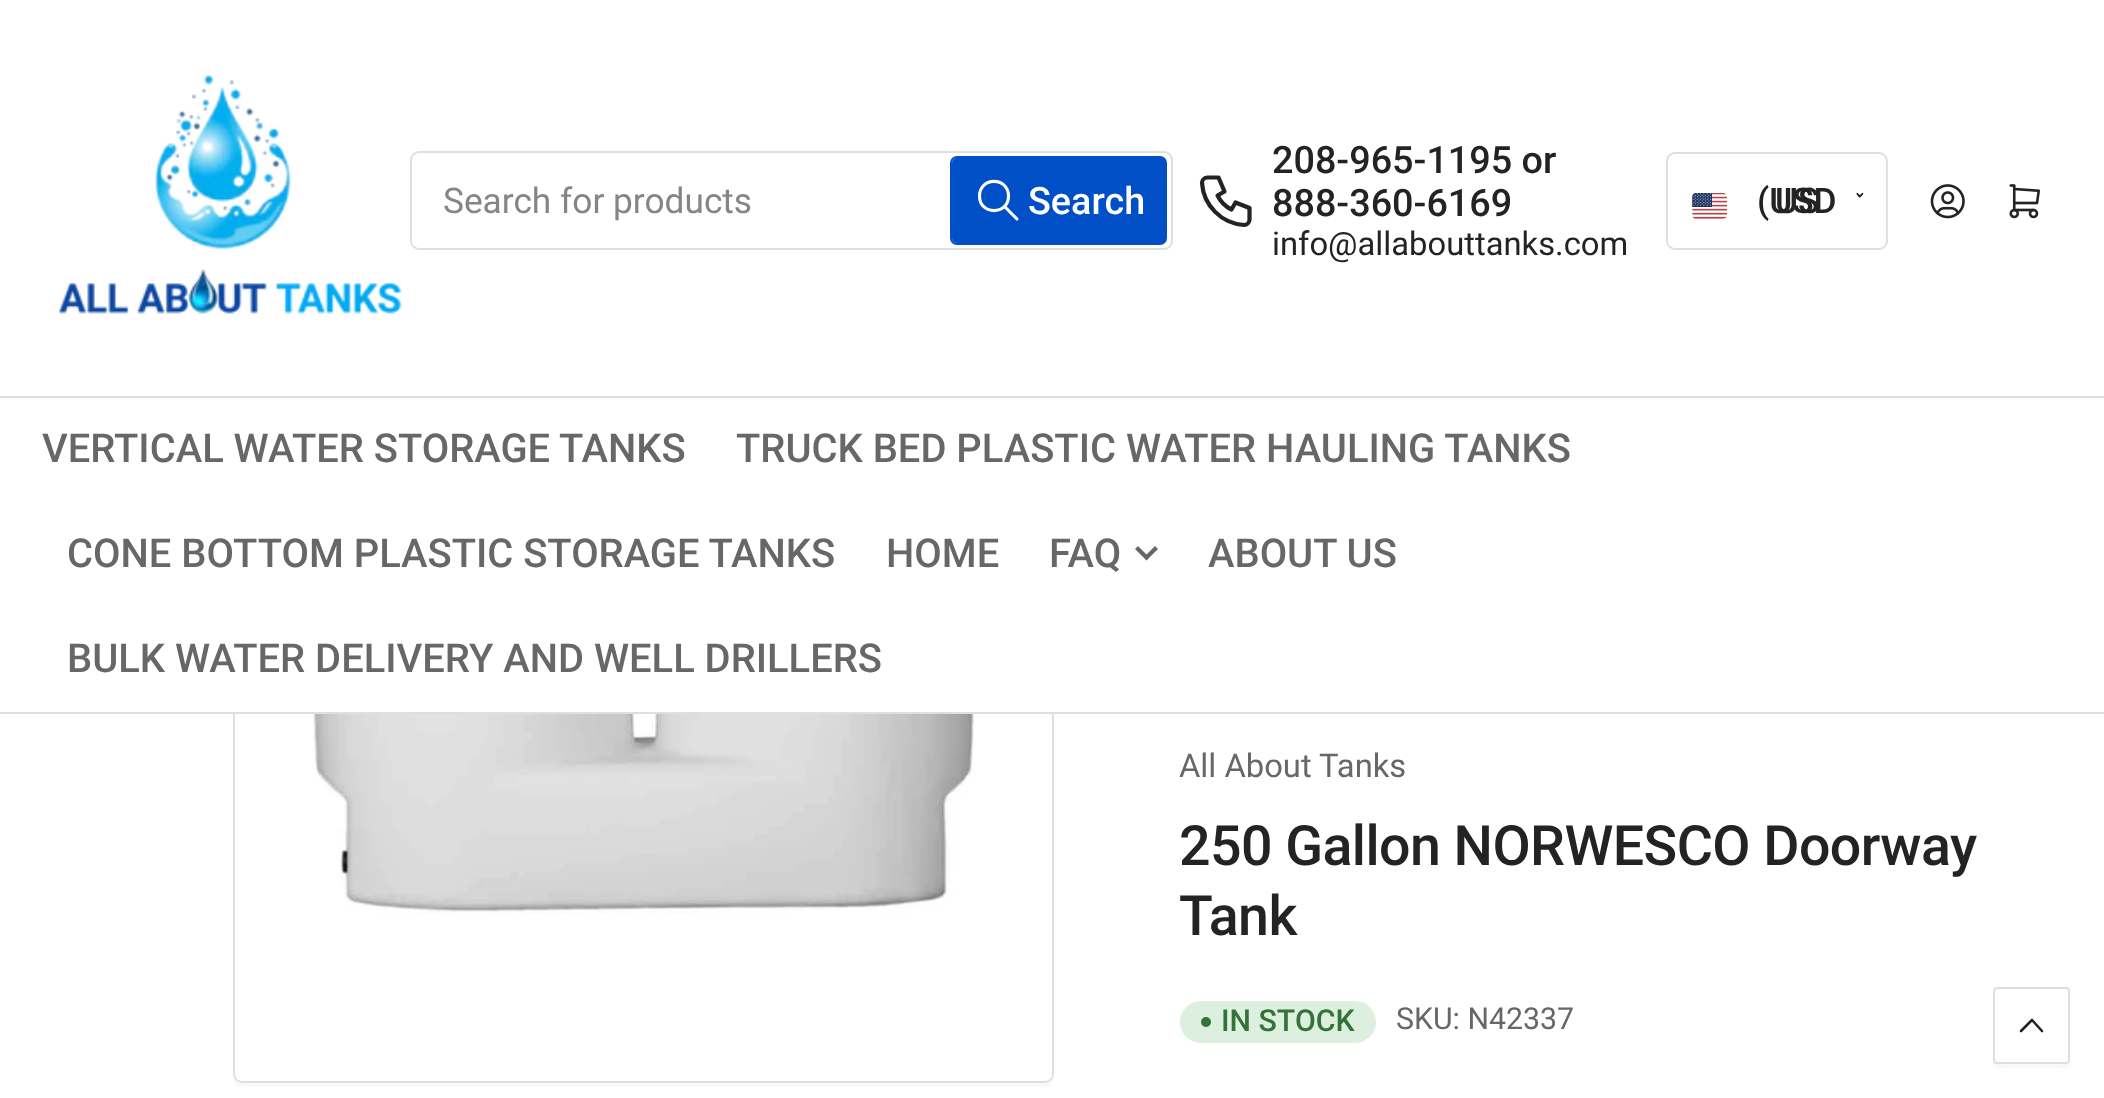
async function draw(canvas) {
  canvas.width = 2104
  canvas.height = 1098
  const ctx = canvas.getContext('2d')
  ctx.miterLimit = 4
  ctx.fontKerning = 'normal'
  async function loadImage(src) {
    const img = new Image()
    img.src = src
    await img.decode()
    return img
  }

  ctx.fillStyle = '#fff'
  ctx.fillRect(0, 0, 2104, 1098)
  ctx.fillStyle = '#f9f9f9'
  ctx.beginPath()
  ctx.moveTo(233, 1077)
  ctx.lineTo(233, 1078)
  ctx.bezierCurveTo(233, 1083, 237, 1087, 242, 1087)
  ctx.lineTo(1045, 1087)
  ctx.bezierCurveTo(1050, 1087, 1054, 1083, 1054, 1078)
  ctx.lineTo(1054, 275)
  ctx.lineTo(1054, 272)
  ctx.lineTo(1054, 1074)
  ctx.bezierCurveTo(1054, 1079, 1050, 1083, 1045, 1083)
  ctx.lineTo(242, 1083)
  ctx.bezierCurveTo(237, 1083, 234, 1080, 233, 1077)
  ctx.closePath()
  ctx.fill()
  ctx.beginPath()
  ctx.roundRect(234, 264, 819, 818, 8)
  ctx.strokeStyle = '#dfdfdf'
  ctx.lineWidth = 2
  ctx.stroke()
  ctx.fillStyle = '#fff'
  ctx.fillRect(233, 263, 821, 133)
  ctx.drawImage(await loadImage('image0.png'), 58, 74, 344, 240)
  ctx.beginPath()
  ctx.roundRect(411, 152, 761, 97, 8)
  ctx.stroke()
  ctx.font = '35.25px Roboto'
  ctx.fillStyle = '#858585'
  ctx.fillText('Search for products', 443, 213)
  ctx.beginPath()
  ctx.roundRect(951, 157, 215, 87, 6)
  ctx.strokeStyle = '#004fc7'
  ctx.stroke()
  ctx.fillStyle = '#004fc7'
  ctx.beginPath()
  ctx.roundRect(952, 158, 214, 85, 5)
  ctx.fill()
  ctx.beginPath()
  ctx.moveTo(979.5, 196)
  ctx.bezierCurveTo(979.5, 215.5, 1008.5, 215.5, 1008.5, 196)
  ctx.bezierCurveTo(1008.5, 176.5, 979.5, 176.5, 979.5, 196)
  ctx.moveTo(1017, 219)
  ctx.lineTo(1004.5, 206.5)
  ctx.strokeStyle = '#fff'
  ctx.lineWidth = 3.1
  ctx.lineCap = 'round'
  ctx.lineJoin = 'round'
  ctx.stroke()
  ctx.font = '500 37.75px Roboto'
  ctx.fillStyle = '#fff'
  ctx.fillText('Search', 1028, 214)
  ctx.beginPath()
  ctx.moveTo(1207.5, 177.5)
  ctx.lineTo(1218.5, 177.5)
  ctx.lineTo(1224.5, 191.5)
  ctx.lineTo(1217.5, 195.5)
  ctx.bezierCurveTo(1220.5, 201.5, 1225, 206.5, 1231.5, 209.5)
  ctx.lineTo(1235.5, 202.5)
  ctx.lineTo(1249.5, 208)
  ctx.lineTo(1249.5, 219.5)
  ctx.bezierCurveTo(1249.5, 222.5, 1247, 225, 1244, 225)
  ctx.bezierCurveTo(1221.5, 223.5, 1203.5, 205.5, 1202, 183)
  ctx.bezierCurveTo(1202, 180, 1204.5, 177.5, 1207.5, 177.5)
  ctx.strokeStyle = '#232323'
  ctx.lineWidth = 4.2
  ctx.stroke()
  ctx.fillStyle = '#232323'
  ctx.fillText('208-965-1195 or', 1272, 173)
  ctx.fillText('888-360-6169', 1272, 216)
  ctx.font = '32.75px Roboto'
  ctx.fillText('info@allabouttanks.com', 1272, 255)
  ctx.beginPath()
  ctx.roundRect(1667, 153, 220, 96, 8)
  ctx.strokeStyle = '#dfdfdf'
  ctx.lineWidth = 2
  ctx.lineJoin = 'miter'
  ctx.stroke()
  ctx.font = '500 35.25px Roboto'
  ctx.fillText('US', 1775, 213)
  ctx.fillText('(USD', 1757, 213)
  ctx.drawImage(await loadImage('image1.png'), 1692, 193, 35, 26)
  ctx.beginPath()
  ctx.moveTo(1857.5, 193)
  ctx.lineTo(1861, 196)
  ctx.lineTo(1860.5, 197)
  ctx.bezierCurveTo(1859.5, 198.5, 1856, 194, 1856.5, 193.5)
  ctx.bezierCurveTo(1856.5, 193, 1857, 192.5, 1857.5, 193)
  ctx.closePath()
  ctx.fill()
  ctx.beginPath()
  ctx.moveTo(1859, 196)
  ctx.lineTo(1862, 193)
  ctx.lineTo(1863, 193)
  ctx.bezierCurveTo(1864.5, 194, 1860, 197.5, 1859.5, 197.5)
  ctx.bezierCurveTo(1858.5, 197, 1858.5, 196.5, 1859, 196)
  ctx.closePath()
  ctx.fill()
  ctx.drawImage(await loadImage('image2.png'), 1930, 184, 35, 35)
  ctx.drawImage(await loadImage('image3.png'), 2009, 184, 31, 35)
  ctx.fillStyle = '#fff'
  ctx.fillRect(233, 398, 821, 314)
  ctx.fillStyle = '#dfdfdf'
  ctx.fillRect(0, 396, 2104, 2)
  ctx.fillRect(0, 712, 2104, 2)
  ctx.font = '500 39.9px Roboto'
  ctx.fillStyle = '#676767'
  ctx.fillText('VERTICAL WATER STORAGE TANKS', 42, 462)
  ctx.fillText('TRUCK BED PLASTIC WATER HAULING TANKS', 736, 462)
  ctx.fillText('CONE BOTTOM PLASTIC STORAGE TANKS', 67, 567)
  ctx.fillText('HOME', 886, 567)
  ctx.fillText('FAQ', 1049, 567)
  ctx.beginPath()
  ctx.moveTo(1155, 549)
  ctx.lineTo(1146.5, 557.5)
  ctx.lineTo(1138, 549)
  ctx.strokeStyle = '#676767'
  ctx.lineWidth = 4.2
  ctx.lineCap = 'square'
  ctx.stroke()
  ctx.fillText('ABOUT US', 1208, 567)
  ctx.fillText('BULK WATER DELIVERY AND WELL DRILLERS', 67, 672)
  ctx.drawImage(await loadImage('image4.png'), 312, 714, 663, 200)
  ctx.font = '32.75px Roboto'
  ctx.fillText('All About Tanks', 1179, 777)
  ctx.letterSpacing = '-0.55px'
  ctx.font = '500 55.5px Roboto'
  ctx.fillStyle = '#232323'
  ctx.fillText('250 Gallon NORWESCO Doorway', 1179, 865)
  ctx.fillText('Tank', 1179, 935)
  ctx.fillStyle = '#ddf0df'
  ctx.beginPath()
  ctx.roundRect(1180, 1001, 196, 42, 21)
  ctx.fill()
  ctx.fillStyle = '#337239'
  ctx.beginPath()
  ctx.arc(1206, 1022, 5, 0, 2 * Math.PI)
  ctx.fill()
  ctx.letterSpacing = '0px'
  ctx.font = '500 30.25px Roboto'
  ctx.fillText('IN STOCK', 1221, 1031)
  ctx.font = '30.25px Roboto'
  ctx.fillStyle = '#676767'
  ctx.fillText('SKU: N42337', 1396, 1029)
  ctx.fillStyle = '#f9f9f9'
  ctx.beginPath()
  ctx.moveTo(1993, 994)
  ctx.lineTo(1993, 1064)
  ctx.bezierCurveTo(1993, 1071, 2007, 1068, 2008, 1068)
  ctx.lineTo(2054, 1068)
  ctx.bezierCurveTo(2063, 1068, 2070, 1071, 2070, 1062)
  ctx.bezierCurveTo(2069, 1063, 2068, 1064, 2067, 1064)
  ctx.lineTo(1997, 1064)
  ctx.bezierCurveTo(1995, 1064, 1993, 1062, 1993, 1060)
  ctx.closePath()
  ctx.fill()
  ctx.beginPath()
  ctx.roundRect(1994, 988, 75, 75, 3)
  ctx.strokeStyle = '#dfdfdf'
  ctx.lineWidth = 2
  ctx.stroke()
  ctx.beginPath()
  ctx.moveTo(2021, 1031)
  ctx.lineTo(2032, 1020)
  ctx.lineTo(2042, 1031)
  ctx.strokeStyle = '#232323'
  ctx.lineWidth = 2.6
  ctx.lineCap = 'round'
  ctx.lineJoin = 'round'
  ctx.stroke()
}

draw(document.querySelector('canvas'))
